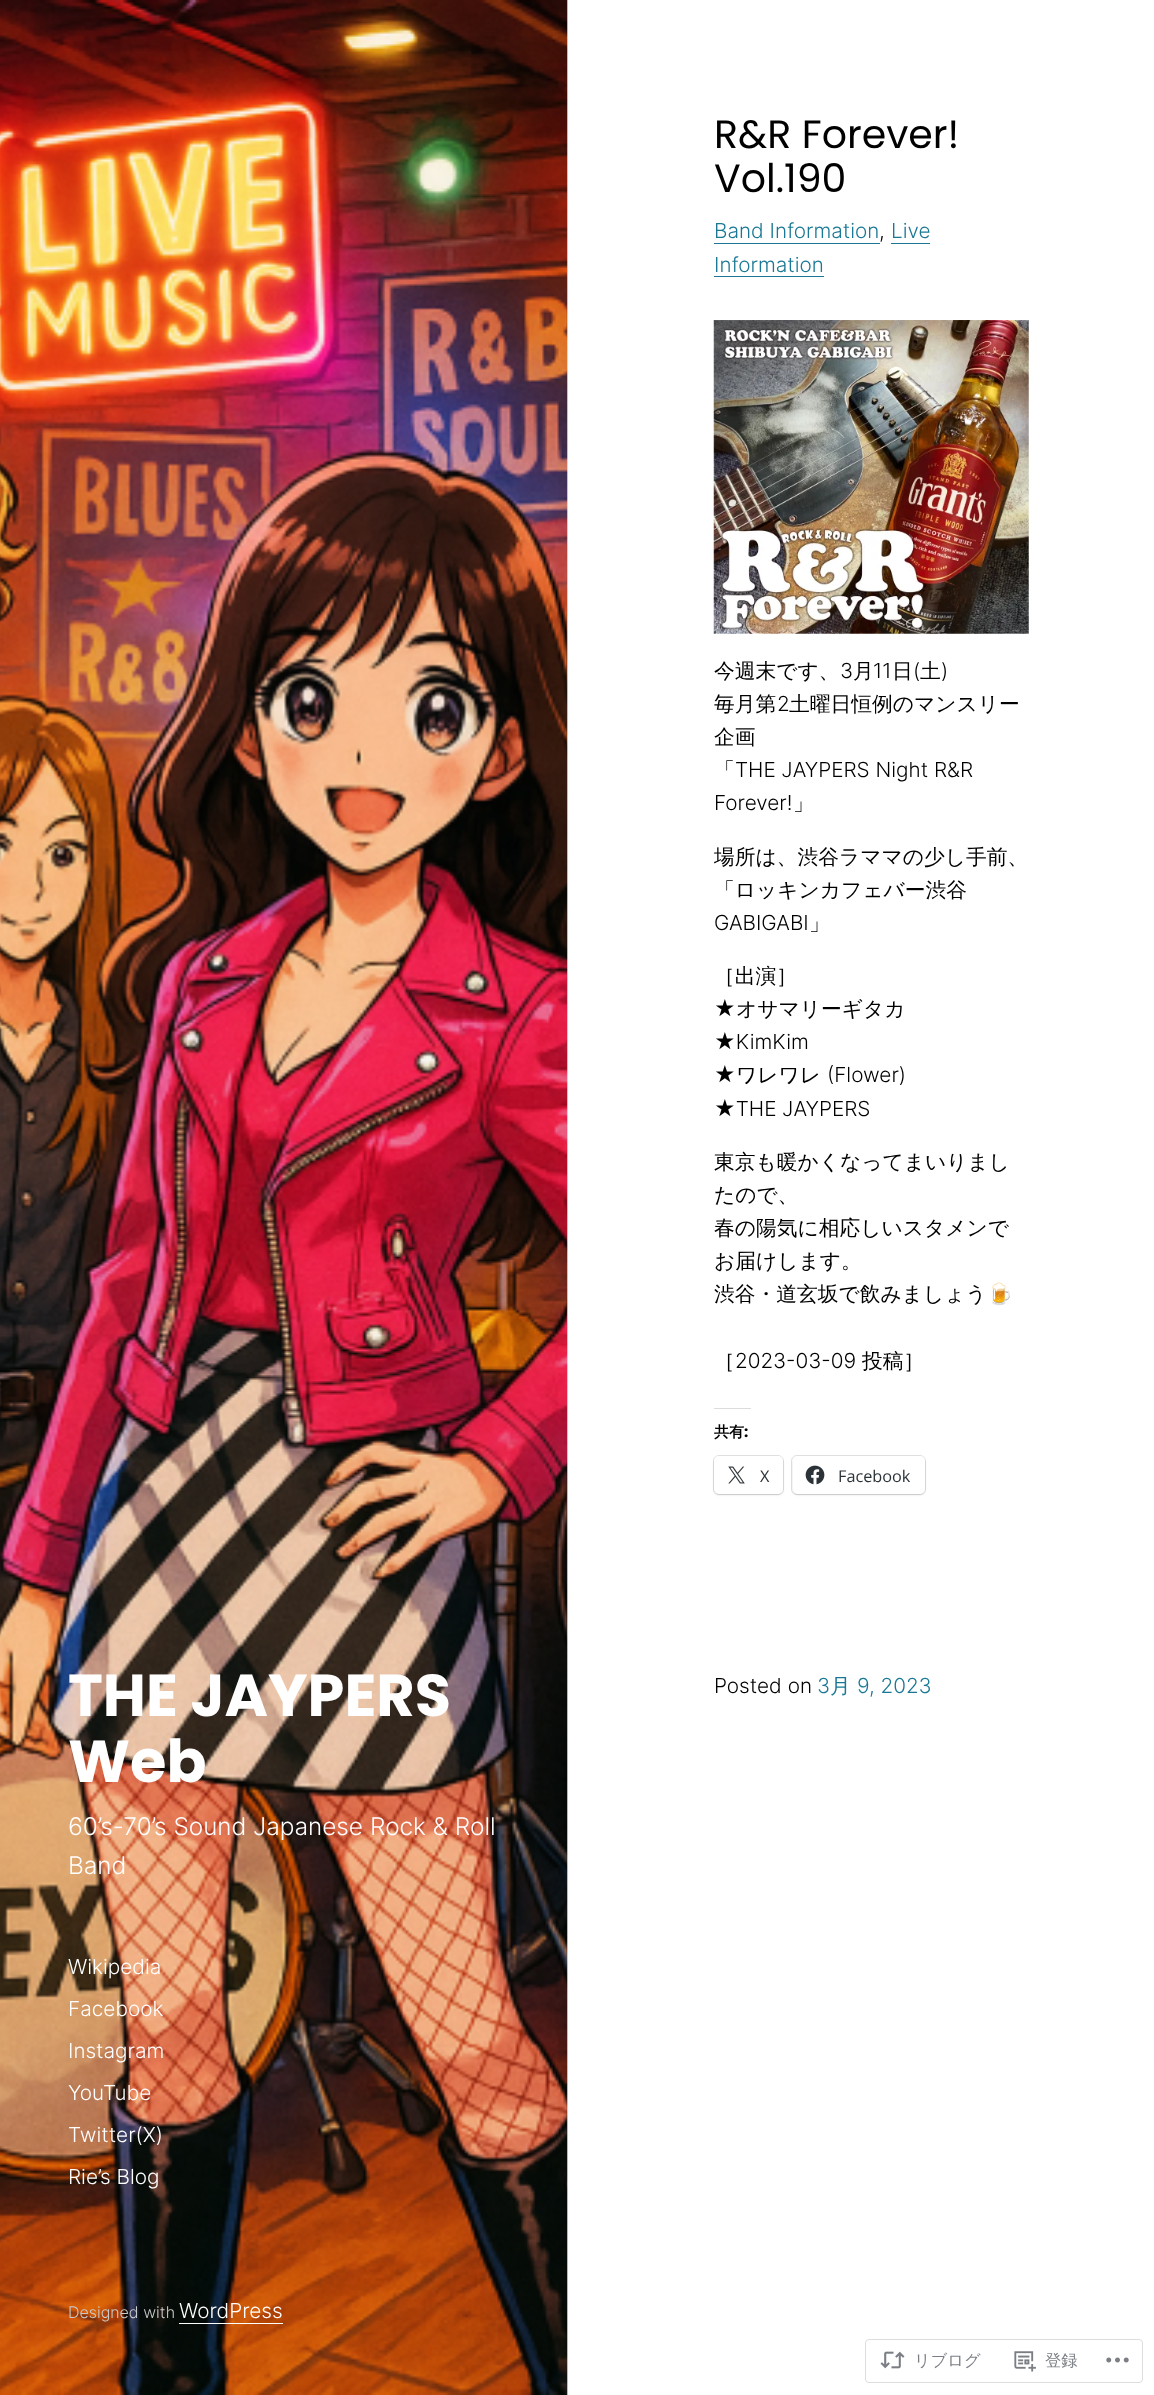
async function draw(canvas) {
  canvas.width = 1154
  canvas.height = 2395
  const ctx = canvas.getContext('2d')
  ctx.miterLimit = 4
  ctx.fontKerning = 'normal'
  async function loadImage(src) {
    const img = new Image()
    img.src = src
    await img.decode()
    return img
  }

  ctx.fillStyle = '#fff'
  ctx.fillRect(0, 0, 1154, 2395)
  ctx.font = '39.5px Poppins'
  ctx.fillStyle = '#000'
  ctx.fillText('R&R Forever!', 714, 148)
  ctx.fillText('Vol.190', 714, 192)
  ctx.font = '300 20.75px Inter'
  ctx.fillStyle = '#1a7895'
  ctx.fillText('Band Information', 714, 238)
  ctx.fillRect(714, 243, 166, 1)
  ctx.fillStyle = '#000'
  ctx.fillText(',', 879, 238)
  ctx.fillStyle = '#1a7895'
  ctx.fillText('Live', 891, 238)
  ctx.fillRect(891, 243, 39, 1)
  ctx.fillText('Information', 714, 272)
  ctx.fillRect(714, 276, 110, 1)
  ctx.drawImage(await loadImage('image0.png'), 713, 320, 316, 314)
  ctx.font = '500 20.75px WenQuanYi Zen Hei'
  ctx.fillStyle = '#000'
  ctx.fillText('今週末です、', 714, 678)
  ctx.font = '300 20.75px Inter'
  ctx.fillText('3', 840, 678)
  ctx.font = '500 20.75px WenQuanYi Zen Hei'
  ctx.fillText('月', 853, 678)
  ctx.font = '300 20.75px Inter'
  ctx.fillText('11', 873, 678)
  ctx.font = '500 20.75px WenQuanYi Zen Hei'
  ctx.fillText('日', 892, 678)
  ctx.font = '300 20.75px Inter'
  ctx.fillText('(', 913, 678)
  ctx.font = '500 20.75px WenQuanYi Zen Hei'
  ctx.fillText('土', 920, 678)
  ctx.font = '300 20.75px Inter'
  ctx.fillText(')', 941, 678)
  ctx.font = '500 20.75px WenQuanYi Zen Hei'
  ctx.fillText('毎月第', 714, 711)
  ctx.font = '300 20.75px Inter'
  ctx.fillText('2', 777, 711)
  ctx.font = '500 20.75px WenQuanYi Zen Hei'
  ctx.fillText('土曜日恒例のマンスリー', 789, 711)
  ctx.fillText('企画', 714, 744)
  ctx.fillText('「', 714, 777)
  ctx.font = '300 20.75px Inter'
  ctx.fillText('THE JAYPERS Night R&R', 735, 777)
  ctx.fillText('Forever!', 714, 810)
  ctx.font = '500 20.75px WenQuanYi Zen Hei'
  ctx.fillText('」', 793, 810)
  ctx.fillText('場所は、渋谷ラママの少し手前、', 714, 864)
  ctx.fillText('「ロッキンカフェバー渋谷', 714, 897)
  ctx.font = '300 20.75px Inter'
  ctx.fillText('GABIGABI', 714, 930)
  ctx.font = '500 20.75px WenQuanYi Zen Hei'
  ctx.fillText('」', 809, 930)
  ctx.fillText('［出演］', 714, 983)
  ctx.font = '300 20.75px Inter'
  ctx.fillText('★', 714, 1016)
  ctx.font = '500 20.75px WenQuanYi Zen Hei'
  ctx.fillText('オサマリーギタカ', 736, 1016)
  ctx.font = '300 20.75px Inter'
  ctx.fillText('★KimKim', 714, 1049)
  ctx.fillText('★', 714, 1082)
  ctx.font = '500 20.75px WenQuanYi Zen Hei'
  ctx.fillText('ワレワレ', 736, 1082)
  ctx.font = '300 20.75px Inter'
  ctx.fillText('(Flower)', 827, 1082)
  ctx.fillText('★THE JAYPERS', 714, 1116)
  ctx.font = '500 20.75px WenQuanYi Zen Hei'
  ctx.fillText('東京も暖かくなってまいりまし', 714, 1169)
  ctx.fillText('たので、', 714, 1202)
  ctx.fillText('春の陽気に相応しいスタメンで', 714, 1235)
  ctx.fillText('お届けします。', 714, 1268)
  ctx.fillText('渋谷・道玄坂で飲みましょう', 714, 1301)
  ctx.font = '20.75px Noto Color Emoji'
  ctx.fillText('🍺', 987, 1301)
  ctx.font = '500 20.75px WenQuanYi Zen Hei'
  ctx.fillText('［', 714, 1368)
  ctx.font = '300 20.75px Inter'
  ctx.fillText('2023-03-09', 735, 1368)
  ctx.font = '500 20.75px WenQuanYi Zen Hei'
  ctx.fillText('投稿］', 862, 1368)
  ctx.fillStyle = '#dcdcde'
  ctx.fillRect(714, 1408, 37, 1)
  ctx.font = 'bold 15px WenQuanYi Zen Hei'
  ctx.fillStyle = '#000'
  ctx.fillText('共有', 714, 1437)
  ctx.font = 'bold 15px Poppins'
  ctx.fillText(':', 744, 1437)
  ctx.beginPath()
  ctx.roundRect(713.5, 1455.5, 70, 39, 5.5)
  ctx.strokeStyle = '#e0e0e0'
  ctx.stroke()
  ctx.fillStyle = '#0000001f'
  ctx.filter = 'blur(1px)'
  ctx.beginPath()
  ctx.roundRect(714, 1458, 69, 37, 5)
  ctx.fill()
  ctx.filter = 'none'
  ctx.fillStyle = '#fff'
  ctx.beginPath()
  ctx.roundRect(714, 1456, 69, 38, 5)
  ctx.fill()
  ctx.drawImage(await loadImage('image1.png'), 728, 1466, 17, 18)
  ctx.font = '16.25px Open Sans'
  ctx.fillStyle = '#2c3338'
  ctx.fillText('X', 760, 1482)
  ctx.beginPath()
  ctx.roundRect(791.5, 1455.5, 134, 39, 5.5)
  ctx.stroke()
  ctx.fillStyle = '#0000001f'
  ctx.filter = 'blur(1px)'
  ctx.beginPath()
  ctx.roundRect(793, 1458, 132, 37, 5)
  ctx.fill()
  ctx.filter = 'none'
  ctx.fillStyle = '#fff'
  ctx.beginPath()
  ctx.roundRect(793, 1456, 132, 38, 5)
  ctx.fill()
  ctx.drawImage(await loadImage('image2.png'), 805, 1465, 20, 20)
  ctx.fillStyle = '#2c3338'
  ctx.fillText('Facebook', 838, 1482)
  ctx.font = '300 20.75px Inter'
  ctx.fillStyle = '#000'
  ctx.fillText('Posted on', 714, 1693)
  ctx.fillStyle = '#1a7895'
  ctx.fillText('3', 817, 1693)
  ctx.font = '500 20.75px WenQuanYi Zen Hei'
  ctx.fillText('月', 830, 1693)
  ctx.font = '300 20.75px Inter'
  ctx.fillText('9, 2023', 857, 1693)
  ctx.fillStyle = '#f0f0f0'
  ctx.fillRect(567, 0, 1, 2395)
  ctx.drawImage(await loadImage('image3.png'), 0, 0, 568, 2395)
  ctx.font = 'bold 59px Poppins'
  ctx.fillStyle = '#fff'
  ctx.fillText('THE JAYPERS', 68, 1716)
  ctx.fillText('Web', 68, 1782)
  ctx.font = '300 24.4px Inter'
  ctx.fillText('60’s-70’s Sound Japanese Rock & Roll', 68, 1835)
  ctx.fillText('Band', 68, 1874)
  ctx.font = '300 20.75px Inter'
  ctx.fillText('Wikipedia', 68, 1974)
  ctx.fillText('Facebook', 68, 2016)
  ctx.fillText('Instagram', 68, 2058)
  ctx.fillText('YouTube', 68, 2100)
  ctx.fillText('Twitter(X)', 68, 2142)
  ctx.fillText('Rie’s Blog', 68, 2184)
  ctx.font = '300 16px Inter'
  ctx.fillStyle = '#cbcbcb'
  ctx.fillText('Designed with', 68, 2318)
  ctx.font = '300 20.75px Inter'
  ctx.fillStyle = '#fff'
  ctx.fillText('WordPress', 179, 2318)
  ctx.fillRect(179, 2323, 104, 1)
  ctx.beginPath()
  ctx.roundRect(865.5, 2339.5, 277, 43, 3.5)
  ctx.strokeStyle = '#dddddf'
  ctx.stroke()
  ctx.drawImage(await loadImage('image4.png'), 880, 2351, 25, 18)
  ctx.font = '500 16.25px WenQuanYi Zen Hei'
  ctx.fillStyle = '#7b7f85'
  ctx.fillText('リブログ', 914, 2366)
  ctx.drawImage(await loadImage('image5.png'), 1014, 2351, 22, 21)
  ctx.fillText('登録', 1045, 2366)
  ctx.drawImage(await loadImage('image6.png'), 1106, 2357, 23, 6)
}

draw(document.querySelector('canvas'))
